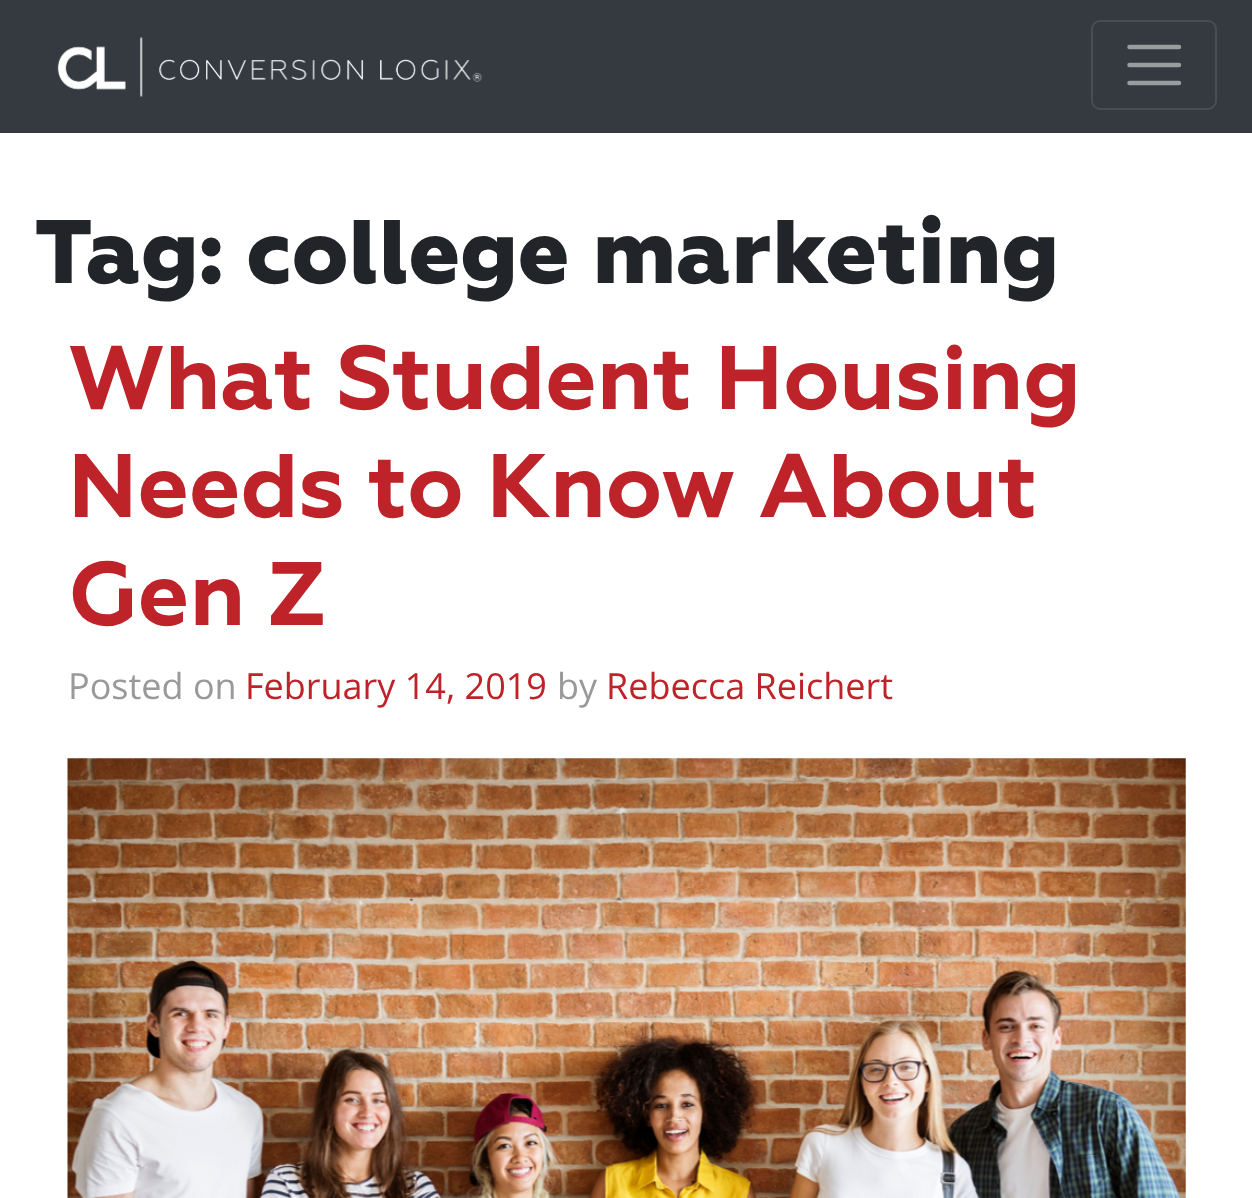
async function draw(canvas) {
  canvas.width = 1252
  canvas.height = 1198
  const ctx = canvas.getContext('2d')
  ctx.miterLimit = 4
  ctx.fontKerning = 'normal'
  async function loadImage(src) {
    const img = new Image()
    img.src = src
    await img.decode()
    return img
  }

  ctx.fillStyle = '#fff'
  ctx.fillRect(0, 0, 1252, 1198)
  ctx.fillStyle = '#343a40'
  ctx.fillRect(0, 0, 1252, 133)
  ctx.drawImage(await loadImage('image0.png'), 57, 37, 425, 60)
  ctx.beginPath()
  ctx.roundRect(1092, 21, 124, 88, 8)
  ctx.strokeStyle = '#484e53'
  ctx.lineWidth = 2
  ctx.stroke()
  ctx.beginPath()
  ctx.moveTo(1129.5, 47)
  ctx.lineTo(1179, 47)
  ctx.moveTo(1129.5, 65)
  ctx.lineTo(1179, 65)
  ctx.moveTo(1129.5, 83)
  ctx.lineTo(1179, 83)
  ctx.strokeStyle = '#9a9da0'
  ctx.lineWidth = 4.5
  ctx.lineCap = 'round'
  ctx.stroke()
  ctx.font = '800 90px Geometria'
  ctx.fillStyle = '#212529'
  ctx.fillText('Tag: college marketing', 34, 283)
  ctx.font = 'bold 90px Geometria'
  ctx.fillStyle = '#be2329'
  ctx.fillText('What Student Housing', 68, 409)
  ctx.fillText('Needs to Know About', 68, 517)
  ctx.fillText('Gen Z', 68, 625)
  ctx.font = '36px Open Sans'
  ctx.fillStyle = '#999'
  ctx.fillText('Posted on', 68, 699)
  ctx.fillStyle = '#be2329'
  ctx.fillText('February 14, 2019', 245, 699)
  ctx.fillStyle = '#999'
  ctx.fillText('by', 557, 699)
  ctx.fillStyle = '#be2329'
  ctx.fillText('Rebecca Reichert', 606, 699)
  ctx.drawImage(await loadImage('image1.png'), 67, 758, 1119, 440)
}

draw(document.querySelector('canvas'))
